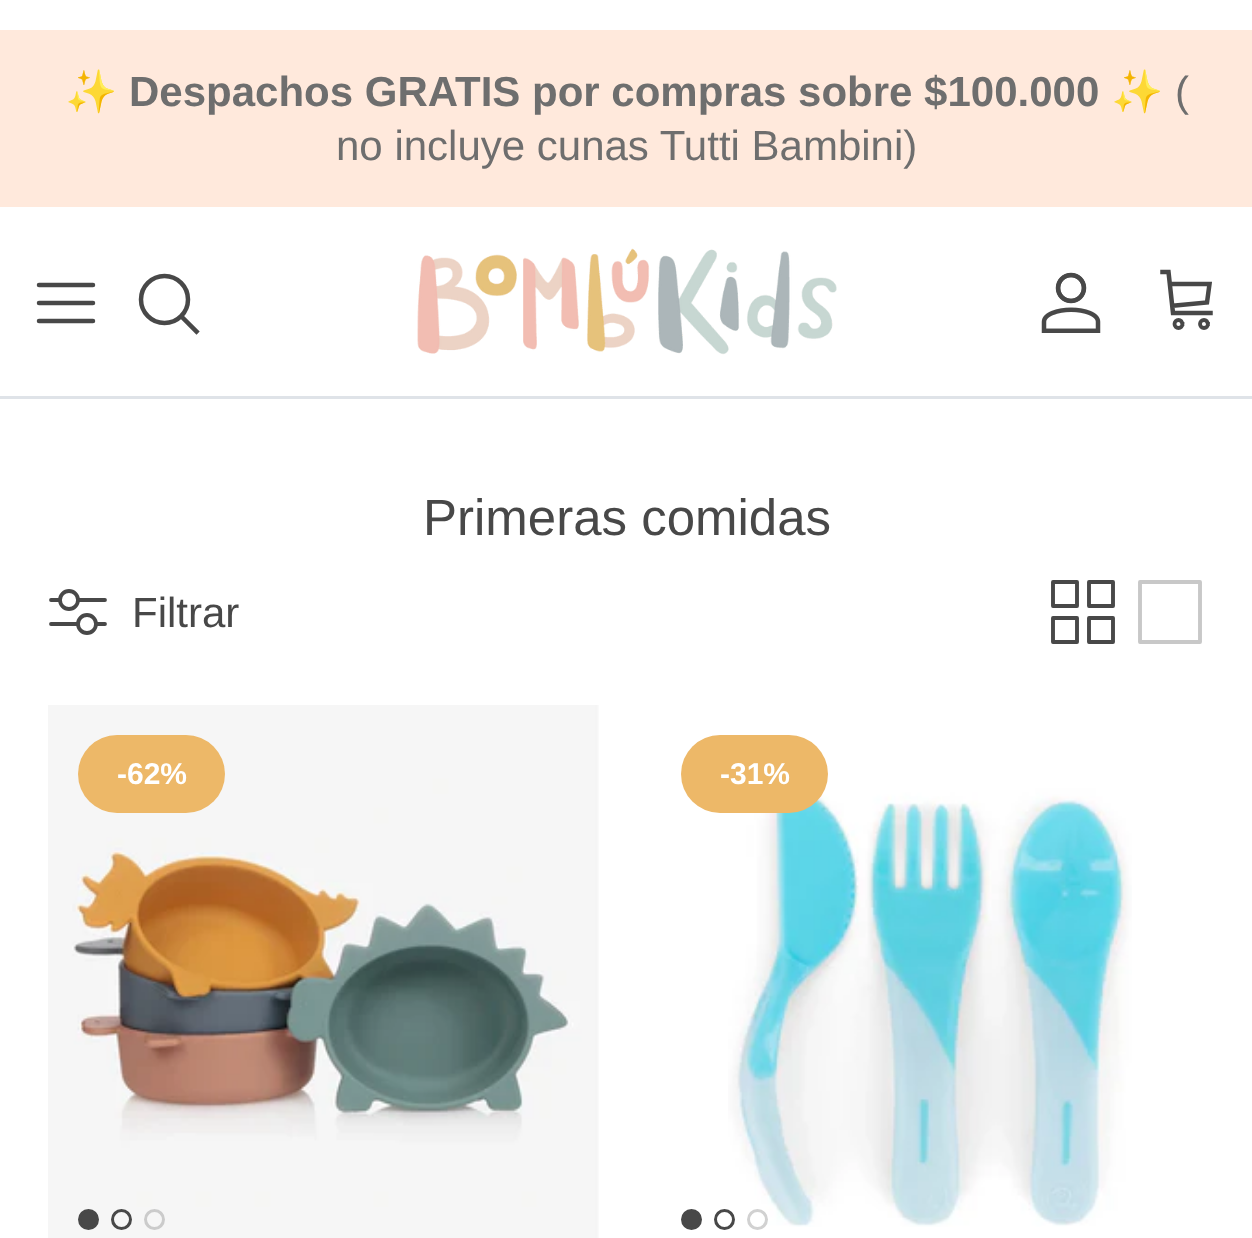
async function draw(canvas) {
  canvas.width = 1252
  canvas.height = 1238
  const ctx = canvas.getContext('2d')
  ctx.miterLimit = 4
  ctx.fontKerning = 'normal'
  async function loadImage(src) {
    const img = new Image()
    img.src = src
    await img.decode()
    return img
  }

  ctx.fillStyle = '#fff'
  ctx.fillRect(0, 0, 1252, 1238)
  ctx.fillStyle = '#ffe9dc'
  ctx.fillRect(0, 30, 1252, 177)
  ctx.font = '42px Noto Color Emoji'
  ctx.fillStyle = '#6e6e6e'
  ctx.fillText('✨', 65, 106)
  ctx.font = 'bold 42px Liberation Sans'
  ctx.fillText('Despachos GRATIS por compras sobre $100.000', 129, 106)
  ctx.font = '42px Noto Color Emoji'
  ctx.fillText('✨', 1111, 106)
  ctx.font = '42px Liberation Sans'
  ctx.fillText('(', 1175, 106)
  ctx.fillText('no incluye cunas Tutti Bambini)', 336, 160)
  ctx.fillStyle = '#dfe3e8'
  ctx.fillRect(0, 396, 1252, 3)
  ctx.beginPath()
  ctx.moveTo(39, 303)
  ctx.lineTo(93, 303)
  ctx.moveTo(39, 285)
  ctx.lineTo(93, 285)
  ctx.moveTo(39, 321)
  ctx.lineTo(93, 321)
  ctx.strokeStyle = '#484848'
  ctx.lineWidth = 4.5
  ctx.lineCap = 'round'
  ctx.lineJoin = 'round'
  ctx.stroke()
  ctx.beginPath()
  ctx.arc(164.5, 299.5, 23.5, 0, 2 * Math.PI)
  ctx.stroke()
  ctx.beginPath()
  ctx.moveTo(183, 318)
  ctx.lineTo(196.5, 331.5)
  ctx.lineCap = 'square'
  ctx.lineJoin = 'miter'
  ctx.stroke()
  ctx.drawImage(await loadImage('image0.png'), 417, 248, 420, 107)
  ctx.drawImage(await loadImage('image1.png'), 1041, 272, 60, 61)
  ctx.beginPath()
  ctx.moveTo(1162.5, 272)
  ctx.lineTo(1168.5, 272)
  ctx.lineTo(1173, 313)
  ctx.lineTo(1210.5, 313)
  ctx.moveTo(1170.5, 284)
  ctx.lineTo(1209.5, 284)
  ctx.lineTo(1207, 302.5)
  ctx.lineTo(1175, 305.5)
  ctx.stroke()
  ctx.beginPath()
  ctx.arc(1178.5, 324, 4, 0, 2 * Math.PI)
  ctx.lineWidth = 3.8
  ctx.stroke()
  ctx.beginPath()
  ctx.arc(1204, 324, 4, 0, 2 * Math.PI)
  ctx.stroke()
  ctx.font = '51px Liberation Sans'
  ctx.fillStyle = '#484848'
  ctx.fillText('Primeras comidas', 423, 535)
  ctx.beginPath()
  ctx.moveTo(51, 600)
  ctx.lineTo(105, 600)
  ctx.moveTo(51, 624)
  ctx.lineTo(105, 624)
  ctx.lineCap = 'round'
  ctx.lineJoin = 'round'
  ctx.stroke()
  ctx.fillStyle = '#fff'
  ctx.beginPath()
  ctx.arc(69, 600, 9, 0, 2 * Math.PI)
  ctx.fill()
  ctx.stroke()
  ctx.beginPath()
  ctx.arc(87, 624, 9, 0, 2 * Math.PI)
  ctx.fill()
  ctx.stroke()
  ctx.font = '42px Liberation Sans'
  ctx.fillStyle = '#484848'
  ctx.fillText('Filtrar', 132, 627)
  ctx.beginPath()
  ctx.moveTo(1053, 582)
  ctx.lineTo(1077, 582)
  ctx.lineTo(1077, 606)
  ctx.lineTo(1053, 606)
  ctx.lineTo(1053, 582)
  ctx.lineWidth = 3.9
  ctx.stroke()
  ctx.beginPath()
  ctx.moveTo(1089, 582)
  ctx.lineTo(1113, 582)
  ctx.lineTo(1113, 606)
  ctx.lineTo(1089, 606)
  ctx.lineTo(1089, 582)
  ctx.stroke()
  ctx.beginPath()
  ctx.moveTo(1089, 618)
  ctx.lineTo(1113, 618)
  ctx.lineTo(1113, 642)
  ctx.lineTo(1089, 642)
  ctx.lineTo(1089, 618)
  ctx.stroke()
  ctx.beginPath()
  ctx.moveTo(1053, 618)
  ctx.lineTo(1077, 618)
  ctx.lineTo(1077, 642)
  ctx.lineTo(1053, 642)
  ctx.lineTo(1053, 618)
  ctx.stroke()
  ctx.beginPath()
  ctx.moveTo(1140, 582)
  ctx.lineTo(1200, 582)
  ctx.lineTo(1200, 642)
  ctx.lineTo(1140, 642)
  ctx.lineTo(1140, 582)
  ctx.strokeStyle = '#c8c8c8'
  ctx.stroke()
  ctx.drawImage(await loadImage('image2.png'), 48, 705, 551, 533)
  ctx.fillStyle = '#edb868'
  ctx.beginPath()
  ctx.roundRect(78, 735, 147, 78, 39)
  ctx.fill()
  ctx.font = 'bold 30px Liberation Sans'
  ctx.fillStyle = '#fff'
  ctx.fillText('-62%', 117, 784)
  ctx.fillStyle = '#484848'
  ctx.beginPath()
  ctx.arc(88.5, 1219.5, 9, 0, 2 * Math.PI)
  ctx.fill()
  ctx.strokeStyle = '#484848'
  ctx.lineWidth = 3
  ctx.stroke()
  ctx.beginPath()
  ctx.arc(121.5, 1219.5, 9, 0, 2 * Math.PI)
  ctx.stroke()
  ctx.beginPath()
  ctx.arc(154.5, 1219.5, 9, 0, 2 * Math.PI)
  ctx.strokeStyle = '#cbcbcb'
  ctx.stroke()
  ctx.drawImage(await loadImage('image3.png'), 728, 782, 404, 445)
  ctx.fillStyle = '#edb868'
  ctx.beginPath()
  ctx.roundRect(681, 735, 147, 78, 39)
  ctx.fill()
  ctx.fillStyle = '#fff'
  ctx.fillText('-31%', 720, 784)
  ctx.fillStyle = '#484848'
  ctx.beginPath()
  ctx.arc(691.5, 1219.5, 9, 0, 2 * Math.PI)
  ctx.fill()
  ctx.strokeStyle = '#484848'
  ctx.stroke()
  ctx.beginPath()
  ctx.arc(724.5, 1219.5, 9, 0, 2 * Math.PI)
  ctx.stroke()
  ctx.beginPath()
  ctx.arc(757.5, 1219.5, 9, 0, 2 * Math.PI)
  ctx.strokeStyle = '#d1d1d1'
  ctx.stroke()
}

draw(document.querySelector('canvas'))
